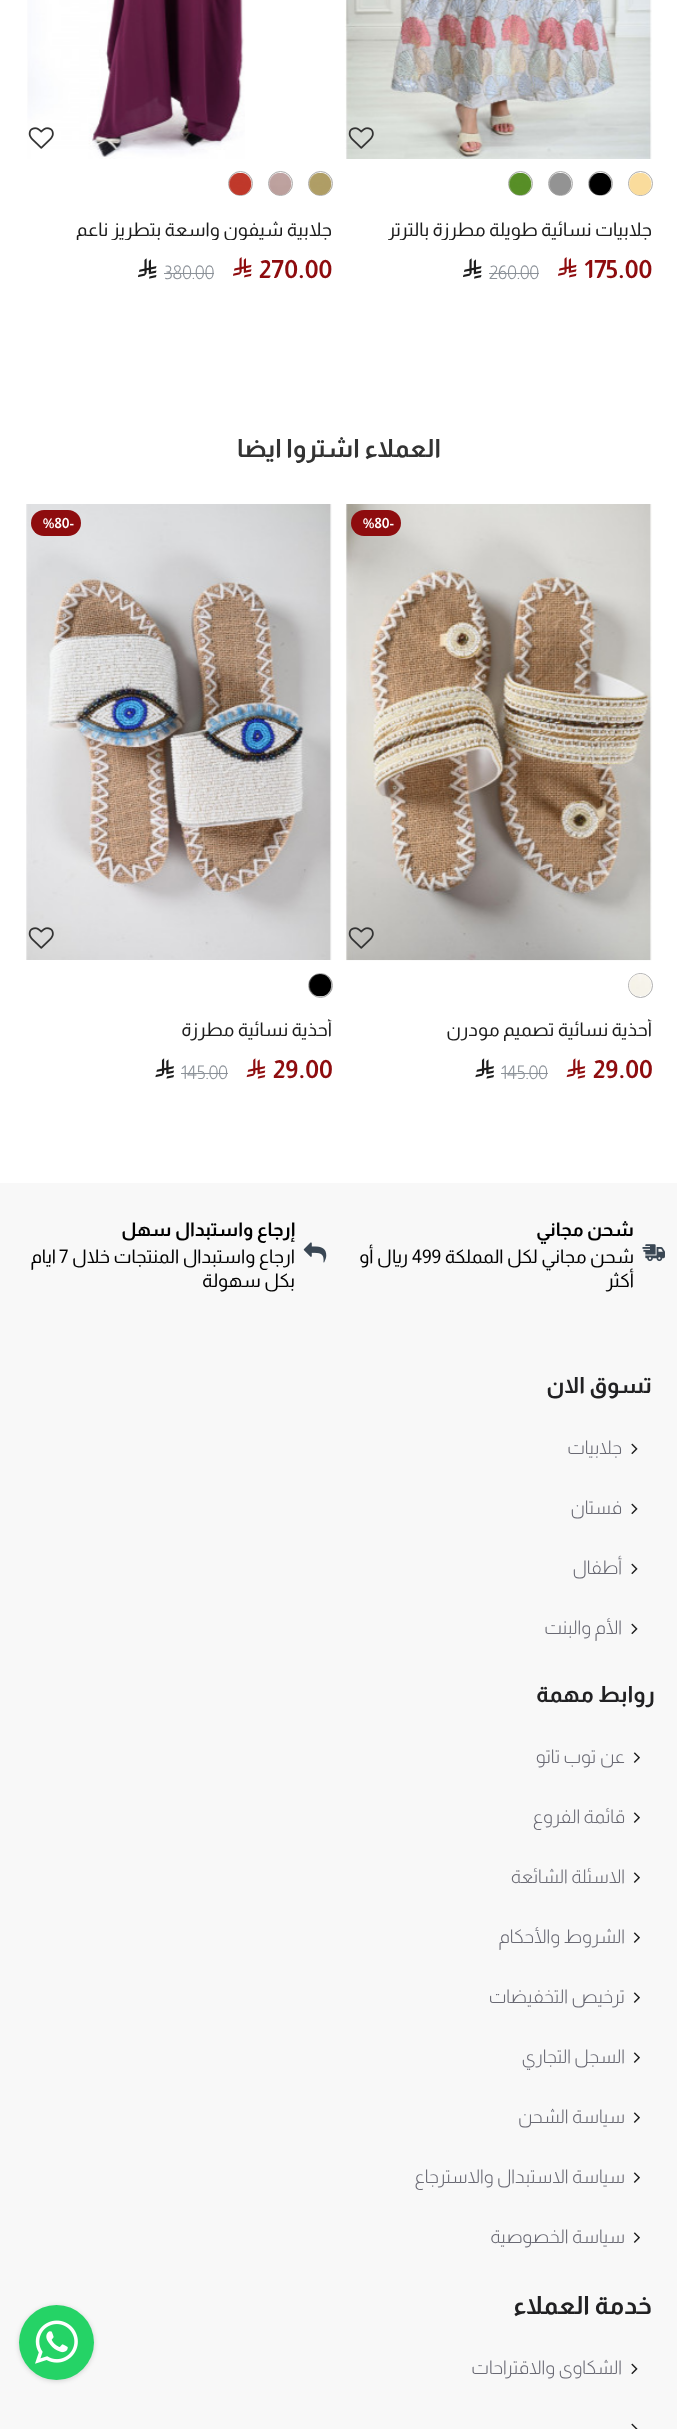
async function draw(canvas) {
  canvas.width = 677
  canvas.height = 2429
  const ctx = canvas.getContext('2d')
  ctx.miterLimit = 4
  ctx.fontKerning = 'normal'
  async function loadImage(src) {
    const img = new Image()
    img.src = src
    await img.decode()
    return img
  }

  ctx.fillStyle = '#fff'
  ctx.fillRect(0, 0, 677, 2429)
  ctx.drawImage(await loadImage('image0.png'), 345, 0, 307, 159)
  ctx.drawImage(await loadImage('image1.png'), 348, 127, 26, 22)
  ctx.beginPath()
  ctx.arc(640.5, 183.5, 12, 0, 2 * Math.PI)
  ctx.strokeStyle = '#ababab'
  ctx.stroke()
  ctx.drawImage(await loadImage('image2.png'), 629, 172, 23, 24)
  ctx.beginPath()
  ctx.arc(600.5, 183.5, 12, 0, 2 * Math.PI)
  ctx.stroke()
  ctx.drawImage(await loadImage('image3.png'), 588, 172, 24, 24)
  ctx.beginPath()
  ctx.arc(560.5, 183.5, 12, 0, 2 * Math.PI)
  ctx.stroke()
  ctx.drawImage(await loadImage('image4.png'), 549, 172, 23, 23)
  ctx.beginPath()
  ctx.arc(520.5, 183.5, 12, 0, 2 * Math.PI)
  ctx.stroke()
  ctx.drawImage(await loadImage('image5.png'), 508, 172, 24, 24)
  ctx.save()
  ctx.beginPath()
  ctx.rect(388, 218, 265, 22)
  ctx.clip()
  ctx.direction = 'rtl'
  ctx.font = '18.75px Almarai'
  ctx.fillStyle = '#1c1c1c'
  ctx.fillText('جلابيات نسائية طويلة مطرزة بالترتر', 652, 236)
  ctx.restore()
  ctx.font = 'bold 25px Almarai'
  ctx.fillStyle = '#8e0c0e'
  ctx.fillText('175.00', 584, 278)
  ctx.drawImage(await loadImage('image6.png'), 558, 257, 19, 21)
  ctx.font = '300 18.75px Almarai'
  ctx.fillStyle = '#8b9198'
  ctx.fillText('260.00', 489, 279)
  ctx.fillRect(489, 273, 50, 1)
  ctx.drawImage(await loadImage('image7.png'), 463, 258, 19, 21)
  ctx.drawImage(await loadImage('image8.png'), 27, 0, 218, 159)
  ctx.drawImage(await loadImage('image9.png'), 28, 127, 26, 22)
  ctx.beginPath()
  ctx.arc(320.5, 183.5, 12, 0, 2 * Math.PI)
  ctx.stroke()
  ctx.drawImage(await loadImage('image10.png'), 308, 172, 24, 23)
  ctx.beginPath()
  ctx.arc(280.5, 183.5, 12, 0, 2 * Math.PI)
  ctx.stroke()
  ctx.drawImage(await loadImage('image11.png'), 269, 172, 23, 23)
  ctx.beginPath()
  ctx.arc(240.5, 183.5, 12, 0, 2 * Math.PI)
  ctx.stroke()
  ctx.drawImage(await loadImage('image12.png'), 228, 172, 24, 24)
  ctx.save()
  ctx.beginPath()
  ctx.rect(76, 218, 257, 22)
  ctx.clip()
  ctx.direction = 'rtl'
  ctx.font = '18.75px Almarai'
  ctx.fillStyle = '#1c1c1c'
  ctx.fillText('جلابية شيفون واسعة بتطريز ناعم', 332, 236)
  ctx.restore()
  ctx.font = 'bold 25px Almarai'
  ctx.fillStyle = '#8e0c0e'
  ctx.fillText('270.00', 259, 278)
  ctx.drawImage(await loadImage('image6.png'), 233, 257, 19, 21)
  ctx.font = '300 18.75px Almarai'
  ctx.fillStyle = '#8b9198'
  ctx.fillText('380.00', 164, 279)
  ctx.fillRect(164, 273, 50, 1)
  ctx.drawImage(await loadImage('image7.png'), 138, 258, 19, 21)
  ctx.direction = 'rtl'
  ctx.font = 'bold 25px Almarai'
  ctx.fillStyle = '#333'
  ctx.fillText('العملاء اشتروا ايضا', 441, 457)
  ctx.drawImage(await loadImage('image13.png'), 345, 504, 307, 457)
  ctx.fillStyle = '#8e0c0e'
  ctx.beginPath()
  ctx.roundRect(351, 510, 50, 26, 13)
  ctx.fill()
  ctx.direction = 'ltr'
  ctx.font = 'bold 14px Almarai'
  ctx.fillStyle = '#fff'
  ctx.fillText('%80-', 363, 528)
  ctx.drawImage(await loadImage('image14.png'), 348, 927, 26, 22)
  ctx.beginPath()
  ctx.arc(640.5, 985.5, 12, 0, 2 * Math.PI)
  ctx.stroke()
  ctx.drawImage(await loadImage('image15.png'), 628, 974, 24, 22)
  ctx.save()
  ctx.beginPath()
  ctx.rect(446, 1019, 207, 22)
  ctx.clip()
  ctx.direction = 'rtl'
  ctx.font = '18.75px Almarai'
  ctx.fillStyle = '#1c1c1c'
  ctx.fillText('أحذية نسائية تصميم مودرن', 652, 1036)
  ctx.restore()
  ctx.font = 'bold 25px Almarai'
  ctx.fillStyle = '#8e0c0e'
  ctx.fillText('29.00', 593, 1078)
  ctx.drawImage(await loadImage('image16.png'), 566, 1058, 20, 21)
  ctx.font = '300 18.75px Almarai'
  ctx.fillStyle = '#8b9198'
  ctx.fillText('145.00', 501, 1079)
  ctx.fillRect(501, 1073, 47, 1)
  ctx.drawImage(await loadImage('image17.png'), 475, 1058, 19, 21)
  ctx.drawImage(await loadImage('image18.png'), 26, 504, 306, 456)
  ctx.fillStyle = '#8e0c0e'
  ctx.beginPath()
  ctx.roundRect(31, 510, 50, 26, 13)
  ctx.fill()
  ctx.font = 'bold 14px Almarai'
  ctx.fillStyle = '#fff'
  ctx.fillText('%80-', 43, 528)
  ctx.drawImage(await loadImage('image19.png'), 28, 927, 26, 22)
  ctx.beginPath()
  ctx.arc(320.5, 985.5, 12, 0, 2 * Math.PI)
  ctx.stroke()
  ctx.drawImage(await loadImage('image20.png'), 308, 974, 24, 23)
  ctx.save()
  ctx.beginPath()
  ctx.rect(181, 1019, 152, 22)
  ctx.clip()
  ctx.direction = 'rtl'
  ctx.font = '18.75px Almarai'
  ctx.fillStyle = '#1c1c1c'
  ctx.fillText('أحذية نسائية مطرزة', 332, 1036)
  ctx.restore()
  ctx.font = 'bold 25px Almarai'
  ctx.fillStyle = '#8e0c0e'
  ctx.fillText('29.00', 273, 1078)
  ctx.drawImage(await loadImage('image16.png'), 246, 1058, 20, 21)
  ctx.font = '300 18.75px Almarai'
  ctx.fillStyle = '#8b9198'
  ctx.fillText('145.00', 181, 1079)
  ctx.fillRect(181, 1073, 47, 1)
  ctx.drawImage(await loadImage('image17.png'), 155, 1058, 19, 21)
  ctx.fillStyle = '#f8f8f8'
  ctx.fillRect(0, 1183, 677, 1246)
  ctx.drawImage(await loadImage('image21.png'), 642, 1244, 23, 18)
  ctx.direction = 'rtl'
  ctx.font = 'bold 18.75px Almarai'
  ctx.fillStyle = '#000'
  ctx.fillText('شحن مجاني', 634, 1236)
  ctx.font = '18.75px Almarai'
  ctx.fillText('شحن مجاني لكل المملكة', 634, 1263)
  ctx.direction = 'ltr'
  ctx.fillText('499', 412, 1263)
  ctx.direction = 'rtl'
  ctx.fillText('ريال أو', 408, 1263)
  ctx.fillText('أكثر', 634, 1287)
  ctx.drawImage(await loadImage('image22.png'), 303, 1242, 24, 21)
  ctx.font = 'bold 18.75px Almarai'
  ctx.fillText('إرجاع واستبدال سهل', 295, 1236)
  ctx.font = '18.75px Almarai'
  ctx.fillText('ارجاع واستبدال المنتجات خلال', 295, 1263)
  ctx.direction = 'ltr'
  ctx.fillText('7', 59, 1263)
  ctx.direction = 'rtl'
  ctx.fillText('ايام', 56, 1263)
  ctx.fillText('بكل سهولة', 295, 1287)
  ctx.font = 'bold 22.5px Almarai'
  ctx.fillStyle = '#212123'
  ctx.fillText('تسوق الان', 652, 1393)
  ctx.drawImage(await loadImage('image23.png'), 631, 1443, 7, 12)
  ctx.font = '300 18.75px Almarai'
  ctx.fillStyle = '#696973'
  ctx.fillText('جلابيات', 622, 1454)
  ctx.drawImage(await loadImage('image23.png'), 631, 1503, 7, 12)
  ctx.fillText('فستان', 622, 1514)
  ctx.drawImage(await loadImage('image23.png'), 631, 1563, 7, 12)
  ctx.fillText('أطفال', 622, 1574)
  ctx.drawImage(await loadImage('image23.png'), 631, 1623, 7, 12)
  ctx.fillText('الأم والبنت', 622, 1634)
  ctx.font = 'bold 22.5px Almarai'
  ctx.fillStyle = '#212123'
  ctx.fillText('روابط مهمة', 655, 1702)
  ctx.drawImage(await loadImage('image24.png'), 633, 1752, 7, 11)
  ctx.font = '300 18.75px Almarai'
  ctx.fillStyle = '#696973'
  ctx.fillText('عن توب تاتو', 625, 1763)
  ctx.drawImage(await loadImage('image24.png'), 633, 1812, 7, 11)
  ctx.fillText('قائمة الفروع', 625, 1823)
  ctx.drawImage(await loadImage('image24.png'), 633, 1872, 7, 11)
  ctx.fillText('الاسئلة الشائعة', 625, 1883)
  ctx.drawImage(await loadImage('image24.png'), 633, 1932, 7, 11)
  ctx.fillText('الشروط والأحكام', 625, 1943)
  ctx.drawImage(await loadImage('image24.png'), 633, 1992, 7, 11)
  ctx.fillText('ترخيص التخفيضات', 625, 2003)
  ctx.drawImage(await loadImage('image24.png'), 633, 2052, 7, 11)
  ctx.fillText('السجل التجاري', 625, 2063)
  ctx.drawImage(await loadImage('image24.png'), 633, 2112, 7, 11)
  ctx.fillText('سياسة الشحن', 625, 2123)
  ctx.drawImage(await loadImage('image24.png'), 633, 2172, 7, 11)
  ctx.fillText('سياسة الاستبدال والاسترجاع', 625, 2183)
  ctx.drawImage(await loadImage('image24.png'), 633, 2232, 7, 11)
  ctx.fillText('سياسة الخصوصية', 625, 2243)
  ctx.font = 'bold 25px Almarai'
  ctx.fillStyle = '#212123'
  ctx.fillText('خدمة العملاء', 652, 2314)
  ctx.drawImage(await loadImage('image23.png'), 631, 2363, 7, 12)
  ctx.font = '300 18.75px Almarai'
  ctx.fillStyle = '#696973'
  ctx.fillText('الشكاوى والاقتراحات', 622, 2374)
  ctx.drawImage(await loadImage('image25.png'), 631, 2423, 7, 6)
  ctx.fillStyle = '#00000029'
  ctx.filter = 'blur(2.5px)'
  ctx.beginPath()
  ctx.roundRect(19, 2306, 75, 75, 37.5)
  ctx.fill()
  ctx.filter = 'none'
  ctx.fillStyle = '#25d366'
  ctx.beginPath()
  ctx.arc(56.5, 2342.5, 37.5, 0, 2 * Math.PI)
  ctx.fill()
  ctx.drawImage(await loadImage('image26.png'), 35, 2320, 43, 44)
}

draw(document.querySelector('canvas'))
